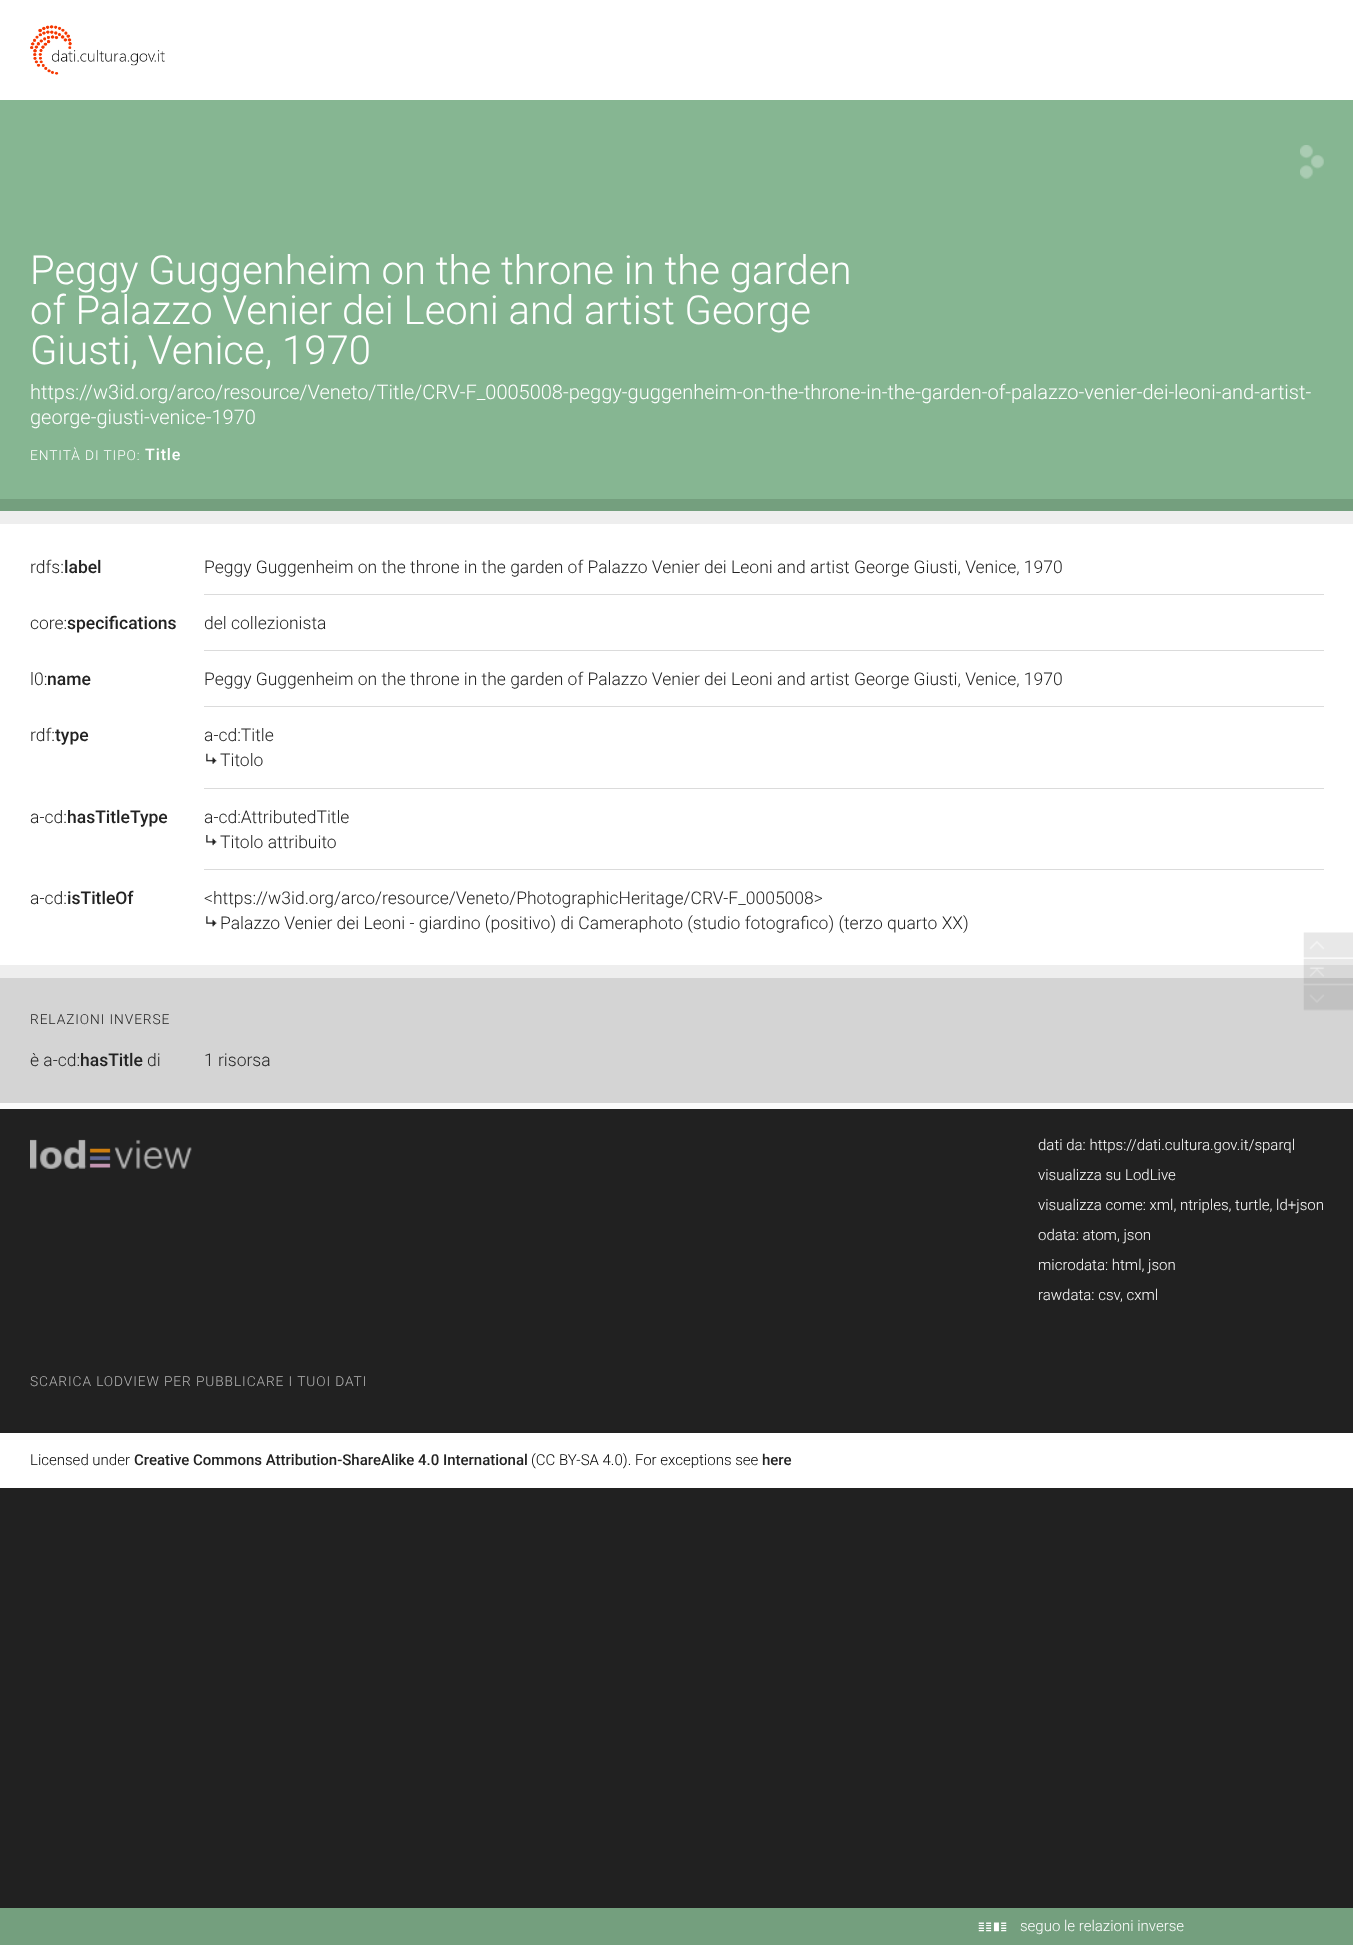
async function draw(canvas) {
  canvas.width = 1353
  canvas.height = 1945
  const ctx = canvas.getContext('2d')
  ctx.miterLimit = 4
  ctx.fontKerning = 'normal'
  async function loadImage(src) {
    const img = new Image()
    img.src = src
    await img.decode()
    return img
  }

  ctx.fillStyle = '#212121'
  ctx.fillRect(0, 0, 1353, 1945)
  ctx.fillStyle = '#fff'
  ctx.fillRect(0, 0, 1353, 100)
  ctx.drawImage(await loadImage('image0.png'), 30, 25, 135, 50)
  ctx.fillStyle = '#86b692'
  ctx.fillRect(0, 100, 1353, 399)
  ctx.font = '300 40px Roboto'
  ctx.fillStyle = '#fff'
  ctx.fillText('Peggy Guggenheim on the throne in the garden', 30, 284)
  ctx.fillText('of Palazzo Venier dei Leoni and artist George', 30, 324)
  ctx.fillText('Giusti, Venice, 1970', 30, 364)
  ctx.drawImage(await loadImage('image1.png'), 1300, 145, 24, 34)
  ctx.font = '300 20px Roboto'
  ctx.fillText('https://w3id.org/arco/resource/Veneto/Title/CRV-F_0005008-peggy-guggenheim-on-the-throne-in-the-garden-of-palazzo-venier-dei-leoni-and-artist-', 30, 399)
  ctx.fillText('george-giusti-venice-1970', 30, 424)
  ctx.letterSpacing = '0.9px'
  ctx.font = '300 13.75px Roboto'
  ctx.fillText('ENTITÀ DI TIPO:', 30, 460)
  ctx.font = '500 16px Roboto'
  ctx.fillText('Title', 145, 460)
  ctx.fillStyle = '#749f7e'
  ctx.fillRect(0, 499, 1353, 12)
  ctx.fillStyle = '#eee'
  ctx.fillRect(0, 511, 1353, 13)
  ctx.fillStyle = '#fff'
  ctx.fillRect(0, 524, 1353, 441)
  ctx.letterSpacing = '0px'
  ctx.font = '300 17.5px Roboto'
  ctx.fillStyle = '#222'
  ctx.fillText('rdfs:', 30, 573)
  ctx.font = '500 17.5px Roboto'
  ctx.fillText('label', 64, 573)
  ctx.fillStyle = '#dbdbdb'
  ctx.fillRect(204, 594, 1120, 1)
  ctx.font = '300 17.5px Roboto'
  ctx.fillStyle = '#222'
  ctx.fillText('Peggy Guggenheim on the throne in the garden of Palazzo Venier dei Leoni and artist George Giusti, Venice, 1970', 204, 573)
  ctx.fillText('core:', 30, 629)
  ctx.font = '500 17.5px Roboto'
  ctx.fillText('specifications', 67, 629)
  ctx.fillStyle = '#dbdbdb'
  ctx.fillRect(204, 650, 1120, 1)
  ctx.font = '300 17.5px Roboto'
  ctx.fillStyle = '#222'
  ctx.fillText('del collezionista', 204, 629)
  ctx.fillText('l0:', 30, 685)
  ctx.font = '500 17.5px Roboto'
  ctx.fillText('name', 47, 685)
  ctx.fillStyle = '#dbdbdb'
  ctx.fillRect(204, 706, 1120, 1)
  ctx.font = '300 17.5px Roboto'
  ctx.fillStyle = '#222'
  ctx.fillText('Peggy Guggenheim on the throne in the garden of Palazzo Venier dei Leoni and artist George Giusti, Venice, 1970', 204, 685)
  ctx.fillText('rdf:', 30, 741)
  ctx.font = '500 17.5px Roboto'
  ctx.fillText('type', 55, 741)
  ctx.fillStyle = '#dbdbdb'
  ctx.fillRect(204, 788, 1120, 1)
  ctx.font = '300 17.5px Roboto'
  ctx.fillStyle = '#222'
  ctx.fillText('a-cd:Title', 204, 741)
  ctx.drawImage(await loadImage('image2.png'), 206, 753, 11, 11)
  ctx.fillText('Titolo', 220, 766)
  ctx.fillText('a-cd:', 30, 823)
  ctx.font = '500 17.5px Roboto'
  ctx.fillText('hasTitleType', 67, 823)
  ctx.fillStyle = '#dbdbdb'
  ctx.fillRect(204, 869, 1120, 1)
  ctx.font = '300 17.5px Roboto'
  ctx.fillStyle = '#222'
  ctx.fillText('a-cd:AttributedTitle', 204, 823)
  ctx.drawImage(await loadImage('image3.png'), 206, 835, 11, 11)
  ctx.fillText('Titolo attribuito', 220, 848)
  ctx.fillText('a-cd:', 30, 904)
  ctx.font = '500 17.5px Roboto'
  ctx.fillText('isTitleOf', 67, 904)
  ctx.font = '300 17.5px Roboto'
  ctx.fillText('<https://w3id.org/arco/resource/Veneto/PhotographicHeritage/CRV-F_0005008>', 204, 904)
  ctx.drawImage(await loadImage('image4.png'), 206, 916, 11, 11)
  ctx.fillText('Palazzo Venier dei Leoni - giardino (positivo) di Cameraphoto (studio fotografico) (terzo quarto XX)', 220, 929)
  ctx.fillStyle = '#eee'
  ctx.fillRect(0, 965, 1353, 13)
  ctx.fillStyle = '#d4d4d4'
  ctx.fillRect(0, 978, 1353, 125)
  ctx.letterSpacing = '0.9px'
  ctx.font = '300 13.75px Roboto'
  ctx.fillStyle = '#222'
  ctx.fillText('RELAZIONI INVERSE', 30, 1024)
  ctx.letterSpacing = '0px'
  ctx.font = '300 17.5px Roboto'
  ctx.fillText('è a-cd:', 30, 1066)
  ctx.font = '500 17.5px Roboto'
  ctx.fillText('hasTitle', 80, 1066)
  ctx.font = '300 17.5px Roboto'
  ctx.fillText('di', 147, 1066)
  ctx.fillText('1 risorsa', 204, 1066)
  ctx.fillStyle = '#fafafa'
  ctx.fillRect(0, 1103, 1353, 6)
  ctx.drawImage(await loadImage('image5.png'), 1303, 932, 50, 26)
  ctx.drawImage(await loadImage('image6.png'), 1303, 958, 50, 26)
  ctx.drawImage(await loadImage('image7.png'), 1303, 984, 50, 27)
  ctx.font = '300 15px Roboto'
  ctx.fillStyle = '#fff'
  ctx.fillText('dati da: https://dati.cultura.gov.it/sparql', 1038, 1150)
  ctx.fillText('visualizza su LodLive', 1038, 1180)
  ctx.fillText('visualizza come: xml, ntriples, turtle, ld+json', 1038, 1210)
  ctx.fillText('odata: atom, json', 1038, 1240)
  ctx.fillText('microdata: html, json', 1038, 1270)
  ctx.fillText('rawdata: csv', 1038, 1300)
  ctx.fillText(', cxml', 1120, 1300)
  ctx.drawImage(await loadImage('image8.png'), 30, 1139, 162, 30)
  ctx.letterSpacing = '0.9px'
  ctx.font = '300 13.75px Roboto'
  ctx.fillStyle = '#b4b4b4'
  ctx.fillText('SCARICA LODVIEW PER PUBBLICARE I TUOI DATI', 30, 1386)
  ctx.fillStyle = '#fff'
  ctx.fillRect(0, 1433, 1353, 55)
  ctx.letterSpacing = '0px'
  ctx.font = '300 15px Roboto'
  ctx.fillStyle = '#000'
  ctx.fillText('Licensed under', 30, 1465)
  ctx.font = '500 15px Roboto'
  ctx.fillStyle = '#222'
  ctx.fillText('Creative Commons Attribution-ShareAlike 4.0 International', 134, 1465)
  ctx.font = '300 15px Roboto'
  ctx.fillStyle = '#000'
  ctx.fillText('(CC BY-SA 4.0). For exceptions see', 531, 1465)
  ctx.font = '500 15px Roboto'
  ctx.fillStyle = '#222'
  ctx.fillText('here', 762, 1465)
  ctx.fillStyle = '#749f7e'
  ctx.fillRect(0, 1908, 1353, 37)
  ctx.drawImage(await loadImage('image9.png'), 978, 1922, 29, 10)
  ctx.font = '300 15px Roboto'
  ctx.fillStyle = '#fff'
  ctx.fillText('seguo le relazioni inverse', 1020, 1931)
}

draw(document.querySelector('canvas'))
